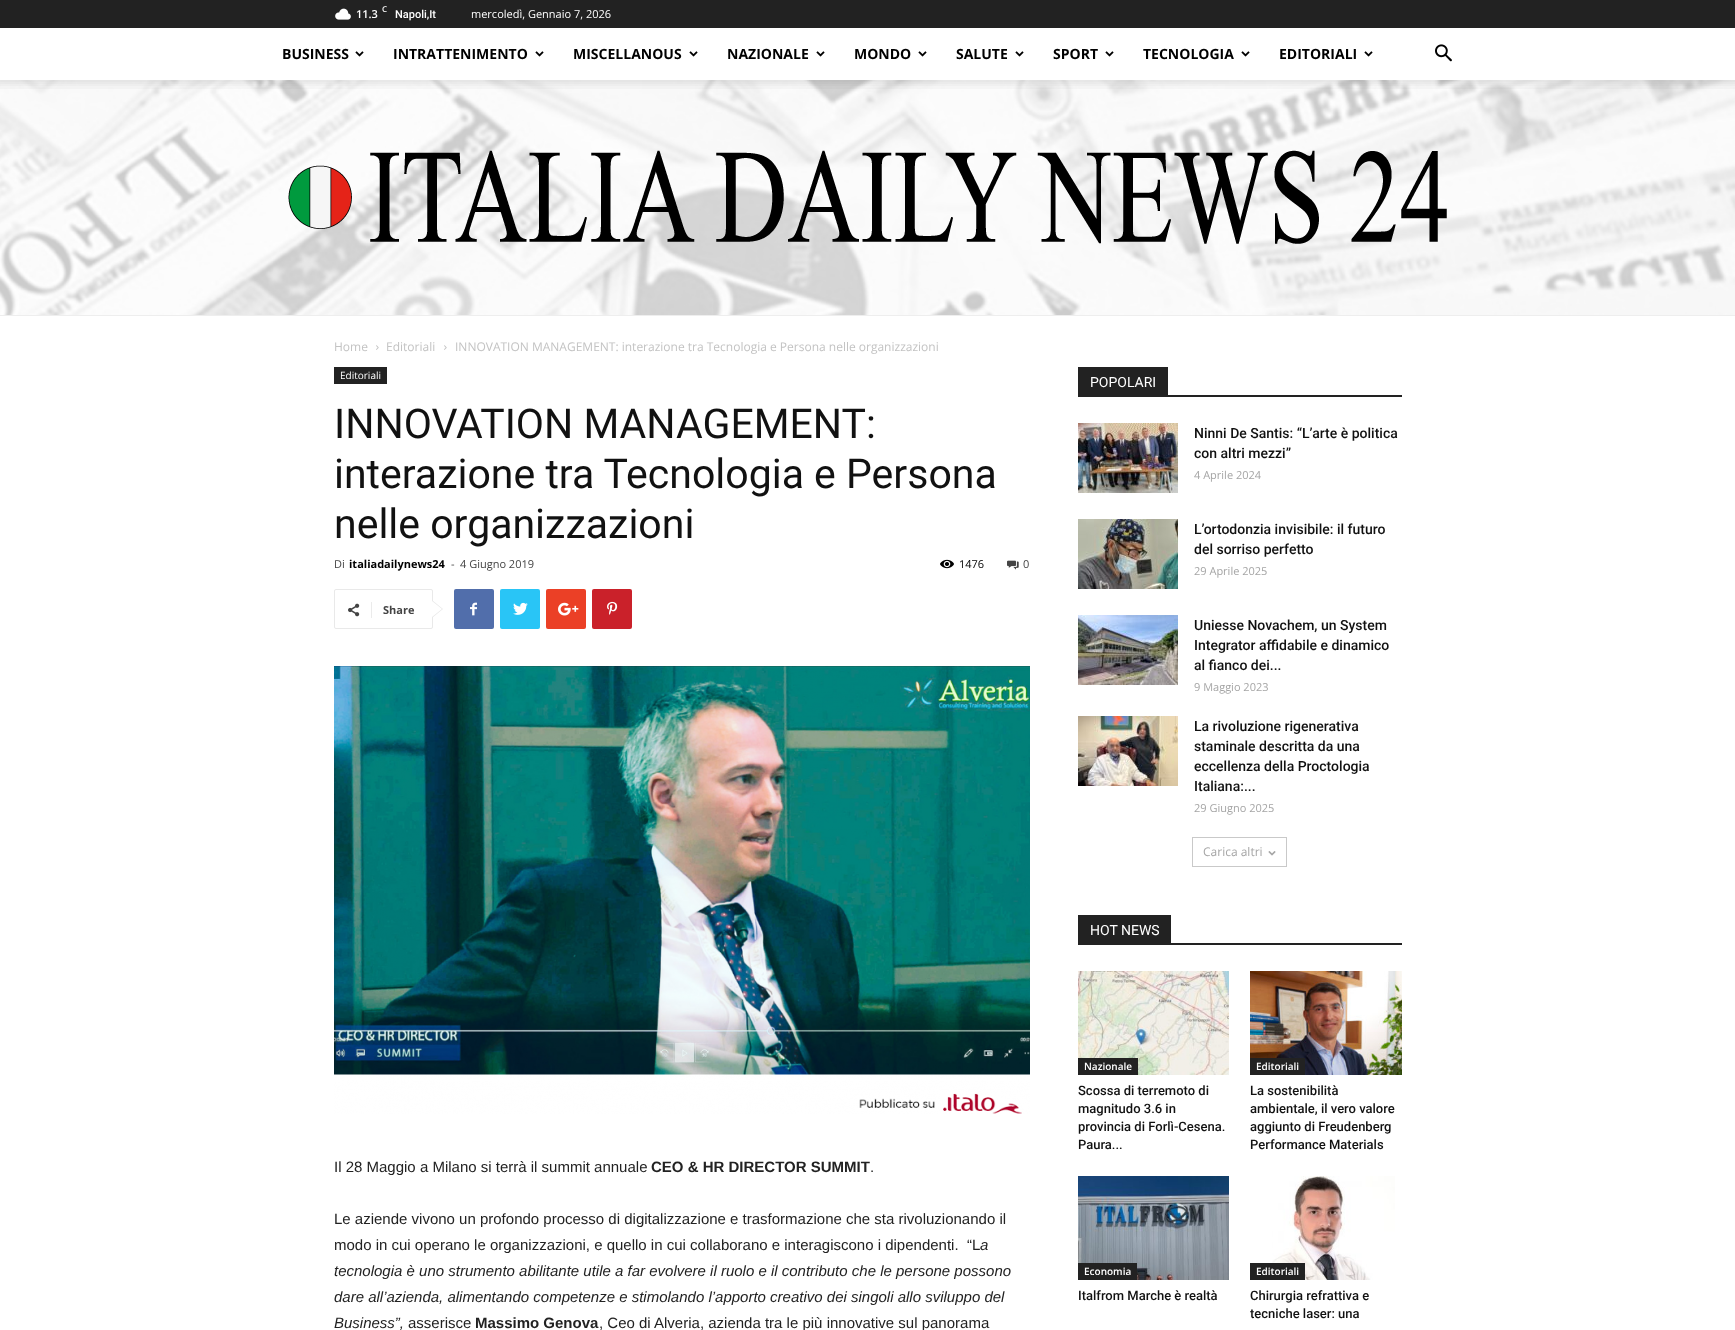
async function draw(canvas) {
  canvas.width = 1735
  canvas.height = 1330
  const ctx = canvas.getContext('2d')
  ctx.miterLimit = 4
  ctx.fontKerning = 'normal'
  async function loadImage(src) {
    const img = new Image()
    img.src = src
    await img.decode()
    return img
  }

  ctx.fillStyle = '#fff'
  ctx.fillRect(0, 0, 1735, 1330)
  ctx.fillStyle = '#222'
  ctx.fillRect(0, 0, 1735, 28)
  ctx.drawImage(await loadImage('image0.png'), 335, 8, 16, 12)
  ctx.font = '600 11px Open Sans'
  ctx.fillStyle = '#fff'
  ctx.fillText('11.3', 356, 18)
  ctx.font = '600 8px Open Sans'
  ctx.fillText('C', 382, 12)
  ctx.font = '500 11px Roboto'
  ctx.fillText('Napoli,It', 395, 18)
  ctx.font = '11px Open Sans'
  ctx.fillText('mercoledì, Gennaio 7, 2026', 471, 18)
  ctx.font = 'bold 14px Open Sans'
  ctx.fillStyle = '#000'
  ctx.fillText('BUSINESS', 282, 59)
  ctx.drawImage(await loadImage('image1.png'), 355, 51, 9, 6)
  ctx.fillText('INTRATTENIMENTO', 393, 59)
  ctx.drawImage(await loadImage('image1.png'), 535, 51, 9, 6)
  ctx.fillText('MISCELLANOUS', 573, 59)
  ctx.drawImage(await loadImage('image1.png'), 689, 51, 9, 6)
  ctx.fillText('NAZIONALE', 727, 59)
  ctx.drawImage(await loadImage('image1.png'), 816, 51, 9, 6)
  ctx.fillText('MONDO', 854, 59)
  ctx.drawImage(await loadImage('image1.png'), 918, 51, 9, 6)
  ctx.fillText('SALUTE', 956, 59)
  ctx.drawImage(await loadImage('image1.png'), 1015, 51, 9, 6)
  ctx.fillText('SPORT', 1053, 59)
  ctx.drawImage(await loadImage('image1.png'), 1105, 51, 9, 6)
  ctx.fillText('TECNOLOGIA', 1143, 59)
  ctx.drawImage(await loadImage('image1.png'), 1241, 51, 9, 6)
  ctx.fillText('EDITORIALI', 1279, 59)
  ctx.drawImage(await loadImage('image1.png'), 1364, 51, 9, 6)
  ctx.drawImage(await loadImage('image2.png'), 1435, 44, 17, 18)
  ctx.drawImage(await loadImage('image4.png'), 0, 80, 1735, 235)
  ctx.drawImage(await loadImage('image3.png'), 0, 80, 1735, 9)
  ctx.fillStyle = '#eee'
  ctx.fillRect(0, 315, 1735, 1)
  ctx.drawImage(await loadImage('image5.png'), 288, 150, 1159, 94)
  ctx.font = '12px Open Sans'
  ctx.fillStyle = '#c3c3c3'
  ctx.fillText('Home', 334, 351)
  ctx.drawImage(await loadImage('image6.png'), 376, 345, 3, 5)
  ctx.fillText('Editoriali', 386, 351)
  ctx.drawImage(await loadImage('image6.png'), 444, 345, 3, 5)
  ctx.fillText('INNOVATION MANAGEMENT: interazione tra Tecnologia e Persona nelle organizzazioni', 455, 351)
  ctx.fillStyle = '#222'
  ctx.fillRect(334, 367, 53, 17)
  ctx.font = '10px Open Sans'
  ctx.fillStyle = '#fff'
  ctx.fillText('Editoriali', 340, 379)
  ctx.font = '41px Roboto'
  ctx.fillStyle = '#111'
  ctx.fillText('INNOVATION MANAGEMENT:', 334, 438)
  ctx.fillText('interazione tra Tecnologia e Persona', 334, 488)
  ctx.fillText('nelle organizzazioni', 334, 538)
  ctx.font = '11px Open Sans'
  ctx.fillStyle = '#444'
  ctx.fillText('Di', 334, 568)
  ctx.font = 'bold 11px Open Sans'
  ctx.fillStyle = '#000'
  ctx.fillText('italiadailynews24', 349, 568)
  ctx.font = '11px Open Sans'
  ctx.fillStyle = '#444'
  ctx.fillText('-', 451, 568)
  ctx.fillText('4 Giugno 2019', 460, 568)
  ctx.drawImage(await loadImage('image7.png'), 940, 559, 14, 10)
  ctx.fillStyle = '#000'
  ctx.fillText('1476', 959, 568)
  ctx.drawImage(await loadImage('image8.png'), 1007, 560, 12, 10)
  ctx.fillStyle = '#444'
  ctx.fillText('0', 1023, 568)
  ctx.beginPath()
  ctx.roundRect(334.5, 589.5, 98, 39, 1.5)
  ctx.strokeStyle = '#e9e9e9'
  ctx.stroke()
  ctx.fillStyle = '#e9e9e9'
  ctx.beginPath()
  ctx.moveTo(432, 618)
  ctx.lineTo(432, 600)
  ctx.lineTo(443, 609)
  ctx.closePath()
  ctx.fill()
  ctx.drawImage(await loadImage('image9.png'), 348, 603, 12, 14)
  ctx.fillStyle = '#ebebeb'
  ctx.fillRect(371, 602, 1, 16)
  ctx.font = 'bold 11px Open Sans'
  ctx.fillStyle = '#444'
  ctx.fillText('Share', 383, 614)
  ctx.fillStyle = '#fff'
  ctx.beginPath()
  ctx.moveTo(432, 617)
  ctx.lineTo(432, 601)
  ctx.lineTo(442, 609)
  ctx.closePath()
  ctx.fill()
  ctx.fillStyle = '#516eab'
  ctx.beginPath()
  ctx.roundRect(454, 589, 40, 40, 2)
  ctx.fill()
  ctx.drawImage(await loadImage('image10.png'), 470, 602, 7, 14)
  ctx.fillStyle = '#29c5f6'
  ctx.beginPath()
  ctx.roundRect(500, 589, 40, 40, 2)
  ctx.fill()
  ctx.drawImage(await loadImage('image11.png'), 513, 602, 15, 13)
  ctx.fillStyle = '#eb4026'
  ctx.beginPath()
  ctx.roundRect(546, 589, 40, 40, 2)
  ctx.fill()
  ctx.drawImage(await loadImage('image12.png'), 558, 602, 21, 14)
  ctx.fillStyle = '#ca212a'
  ctx.beginPath()
  ctx.roundRect(592, 589, 40, 40, 2)
  ctx.fill()
  ctx.drawImage(await loadImage('image13.png'), 607, 601, 11, 14)
  ctx.drawImage(await loadImage('image14.png'), 334, 666, 696, 448)
  ctx.font = '15px Liberation Sans'
  ctx.fillStyle = '#222'
  ctx.fillText('Il 28 Maggio a Milano si terrà il summit annuale', 334, 1172)
  ctx.font = 'bold 15px Liberation Sans'
  ctx.fillText('CEO & HR DIRECTOR SUMMIT', 651, 1172)
  ctx.font = '15px Liberation Sans'
  ctx.fillText('.', 870, 1172)
  ctx.fillText('Le aziende vivono un profondo processo di digitalizzazione e trasformazione che sta rivoluzionando il', 334, 1224)
  ctx.fillText('modo in cui operano le organizzazioni, e quello in cui collaborano e interagiscono i dipendenti.  “L', 334, 1250)
  ctx.font = 'italic 15px Liberation Sans'
  ctx.fillText('a', 980, 1250)
  ctx.fillText('tecnologia è uno strumento abilitante utile a far evolvere il ruolo e il contributo che le persone possono', 334, 1276)
  ctx.fillText('dare all’azienda, alimentando competenze e stimolando l’apporto creativo dei singoli allo sviluppo del', 334, 1302)
  ctx.fillText('Business”,', 334, 1328)
  ctx.font = '15px Liberation Sans'
  ctx.fillText('asserisce', 408, 1328)
  ctx.font = 'bold 15px Liberation Sans'
  ctx.fillText('Massimo Genova', 475, 1328)
  ctx.font = '15px Liberation Sans'
  ctx.fillText(', Ceo di Alveria, azienda tra le più innovative sul panorama', 599, 1328)
  ctx.fillRect(1078, 395, 324, 2)
  ctx.fillRect(1078, 367, 90, 28)
  ctx.font = '14px Roboto'
  ctx.fillStyle = '#fff'
  ctx.fillText('POPOLARI', 1090, 387)
  ctx.drawImage(await loadImage('image15.png'), 1078, 423, 100, 70)
  ctx.font = '500 14px Roboto'
  ctx.fillStyle = '#111'
  ctx.fillText('Ninni De Santis: “L’arte è politica', 1194, 438)
  ctx.fillText('con altri mezzi”', 1194, 458)
  ctx.font = '11px Open Sans'
  ctx.fillStyle = '#a5a5a5'
  ctx.fillText('4 Aprile 2024', 1194, 479)
  ctx.drawImage(await loadImage('image16.png'), 1078, 519, 100, 70)
  ctx.font = '500 14px Roboto'
  ctx.fillStyle = '#111'
  ctx.fillText('L’ortodonzia invisibile: il futuro', 1194, 534)
  ctx.fillText('del sorriso perfetto', 1194, 554)
  ctx.font = '11px Open Sans'
  ctx.fillStyle = '#a5a5a5'
  ctx.fillText('29 Aprile 2025', 1194, 575)
  ctx.drawImage(await loadImage('image17.png'), 1078, 615, 100, 70)
  ctx.font = '500 14px Roboto'
  ctx.fillStyle = '#111'
  ctx.fillText('Uniesse Novachem, un System', 1194, 630)
  ctx.fillText('Integrator affidabile e dinamico', 1194, 650)
  ctx.fillText('al fianco dei...', 1194, 670)
  ctx.font = '11px Open Sans'
  ctx.fillStyle = '#a5a5a5'
  ctx.fillText('9 Maggio 2023', 1194, 691)
  ctx.drawImage(await loadImage('image18.png'), 1078, 716, 100, 70)
  ctx.font = '500 14px Roboto'
  ctx.fillStyle = '#111'
  ctx.fillText('La rivoluzione rigenerativa', 1194, 731)
  ctx.fillText('staminale descritta da una', 1194, 751)
  ctx.fillText('eccellenza della Proctologia', 1194, 771)
  ctx.fillText('Italiana:...', 1194, 791)
  ctx.font = '11px Open Sans'
  ctx.fillStyle = '#a5a5a5'
  ctx.fillText('29 Giugno 2025', 1194, 812)
  ctx.strokeStyle = '#c9c9c9'
  ctx.strokeRect(1192.5, 837.5, 94, 29)
  ctx.font = '12px Open Sans'
  ctx.fillText('Carica altri', 1203, 856)
  ctx.drawImage(await loadImage('image19.png'), 1268, 851, 8, 5)
  ctx.fillStyle = '#222'
  ctx.fillRect(1078, 943, 324, 2)
  ctx.fillRect(1078, 915, 93, 28)
  ctx.font = '14px Roboto'
  ctx.fillStyle = '#fff'
  ctx.fillText('HOT NEWS', 1090, 935)
  ctx.drawImage(await loadImage('image20.png'), 1078, 971, 151, 104)
  ctx.fillStyle = '#222'
  ctx.fillRect(1078, 1058, 60, 17)
  ctx.font = '600 10px Open Sans'
  ctx.fillStyle = '#fff'
  ctx.fillText('Nazionale', 1084, 1070)
  ctx.font = '500 13px Roboto'
  ctx.fillStyle = '#111'
  ctx.fillText('Scossa di terremoto di', 1078, 1095)
  ctx.fillText('magnitudo 3.6 in', 1078, 1113)
  ctx.fillText('provincia di Forlì-Cesena.', 1078, 1131)
  ctx.fillText('Paura...', 1078, 1149)
  ctx.drawImage(await loadImage('image21.png'), 1250, 971, 152, 104)
  ctx.fillStyle = '#222'
  ctx.fillRect(1250, 1058, 55, 17)
  ctx.font = '600 10px Open Sans'
  ctx.fillStyle = '#fff'
  ctx.fillText('Editoriali', 1256, 1070)
  ctx.font = '500 13px Roboto'
  ctx.fillStyle = '#111'
  ctx.fillText('La sostenibilità', 1250, 1095)
  ctx.fillText('ambientale, il vero valore', 1250, 1113)
  ctx.fillText('aggiunto di Freudenberg', 1250, 1131)
  ctx.fillText('Performance Materials', 1250, 1149)
  ctx.drawImage(await loadImage('image22.png'), 1078, 1176, 151, 104)
  ctx.fillStyle = '#222'
  ctx.fillRect(1078, 1263, 59, 17)
  ctx.font = '600 10px Open Sans'
  ctx.fillStyle = '#fff'
  ctx.fillText('Economia', 1084, 1275)
  ctx.font = '500 13px Roboto'
  ctx.fillStyle = '#111'
  ctx.fillText('Italfrom Marche è realtà', 1078, 1300)
  ctx.drawImage(await loadImage('image23.png'), 1272, 1176, 123, 104)
  ctx.fillStyle = '#222'
  ctx.fillRect(1250, 1263, 55, 17)
  ctx.font = '600 10px Open Sans'
  ctx.fillStyle = '#fff'
  ctx.fillText('Editoriali', 1256, 1275)
  ctx.font = '500 13px Roboto'
  ctx.fillStyle = '#111'
  ctx.fillText('Chirurgia refrattiva e', 1250, 1300)
  ctx.fillText('tecniche laser: una', 1250, 1318)
}

draw(document.querySelector('canvas'))
